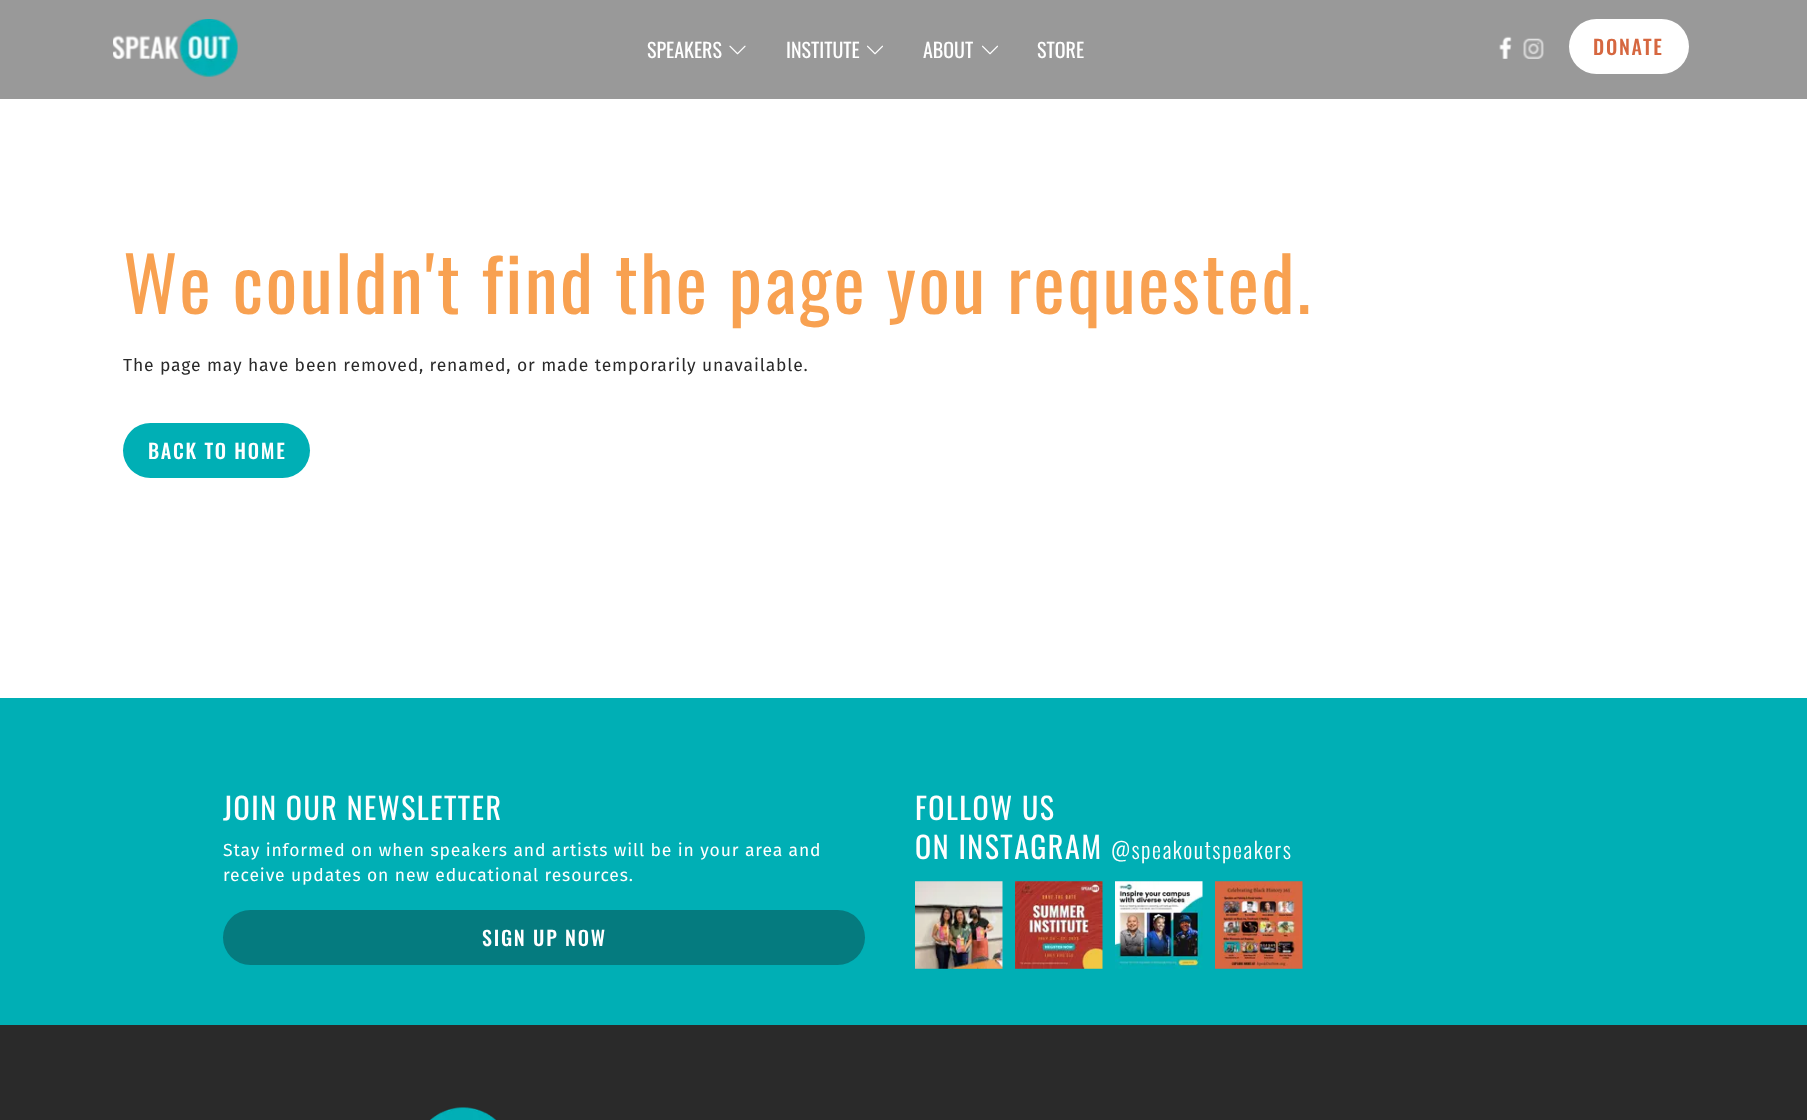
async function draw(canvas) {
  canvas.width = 1807
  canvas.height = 1120
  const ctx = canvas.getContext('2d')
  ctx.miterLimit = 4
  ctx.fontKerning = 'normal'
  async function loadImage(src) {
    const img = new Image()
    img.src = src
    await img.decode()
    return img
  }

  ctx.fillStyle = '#fff'
  ctx.fillRect(0, 0, 1807, 1120)
  ctx.fillStyle = '#999'
  ctx.fillRect(0, 0, 1807, 99)
  ctx.drawImage(await loadImage('image0.png'), 113, 19, 125, 58)
  ctx.font = '20px Oswald'
  ctx.fillStyle = '#fff'
  ctx.fillText('SPEAKERS', 647, 58)
  ctx.drawImage(await loadImage('image1.png'), 729, 45, 17, 10)
  ctx.fillText('INSTITUTE', 786, 58)
  ctx.drawImage(await loadImage('image2.png'), 867, 45, 16, 10)
  ctx.fillText('ABOUT', 923, 58)
  ctx.drawImage(await loadImage('image2.png'), 982, 45, 16, 10)
  ctx.fillText('STORE', 1037, 58)
  ctx.drawImage(await loadImage('image3.png'), 1499, 36, 13, 23)
  ctx.drawImage(await loadImage('image4.png'), 1523, 38, 21, 21)
  ctx.beginPath()
  ctx.roundRect(1569, 19, 120, 55, 27.5)
  ctx.fill()
  ctx.letterSpacing = '1.75px'
  ctx.font = '500 20px Oswald'
  ctx.fillStyle = '#d66740'
  ctx.fillText('DONATE', 1593, 55)
  ctx.letterSpacing = '2.25px'
  ctx.font = '75px Oswald'
  ctx.fillStyle = '#f8a151'
  ctx.fillText('We couldn\'t find the page you requested.', 123, 314)
  ctx.letterSpacing = '0.88px'
  ctx.font = '17.5px Fira Sans'
  ctx.fillStyle = '#2a2a2a'
  ctx.fillText('The page may have been removed, renamed, or made temporarily unavailable.', 123, 371)
  ctx.fillStyle = '#00afb5'
  ctx.beginPath()
  ctx.roundRect(123, 423, 187, 55, 27.5)
  ctx.fill()
  ctx.letterSpacing = '1.75px'
  ctx.font = '500 20px Oswald'
  ctx.fillStyle = '#fff'
  ctx.fillText('BACK TO HOME', 148, 459)
  ctx.fillStyle = '#00afb5'
  ctx.fillRect(0, 698, 1807, 327)
  ctx.letterSpacing = '1.5px'
  ctx.font = '30px Oswald'
  ctx.fillStyle = '#fff'
  ctx.fillText('JOIN OUR NEWSLETTER', 223, 820)
  ctx.letterSpacing = '0.88px'
  ctx.font = '17.5px Fira Sans'
  ctx.fillText('Stay informed on when speakers and artists will be in your area and', 223, 856)
  ctx.fillText('receive updates on new educational resources.', 223, 881)
  ctx.fillStyle = '#057b7f'
  ctx.beginPath()
  ctx.roundRect(223, 910, 642, 55, 27.5)
  ctx.fill()
  ctx.letterSpacing = '1.75px'
  ctx.font = '500 20px Oswald'
  ctx.fillStyle = '#fff'
  ctx.fillText('SIGN UP NOW', 482, 946)
  ctx.letterSpacing = '1.5px'
  ctx.font = '30px Oswald'
  ctx.fillText('FOLLOW US', 915, 820)
  ctx.fillText('ON INSTAGRAM', 915, 859)
  ctx.font = '300 22.5px Oswald'
  ctx.fillText('@speakoutspeakers', 1111, 859)
  ctx.drawImage(await loadImage('image5.png'), 915, 881, 88, 88)
  ctx.drawImage(await loadImage('image6.png'), 1015, 881, 88, 88)
  ctx.drawImage(await loadImage('image7.png'), 1115, 881, 88, 88)
  ctx.drawImage(await loadImage('image8.png'), 1215, 881, 88, 88)
  ctx.fillStyle = '#2a2a2a'
  ctx.fillRect(0, 1025, 1807, 95)
  ctx.drawImage(await loadImage('image9.png'), 430, 1107, 67, 13)
}

draw(document.querySelector('canvas'))
